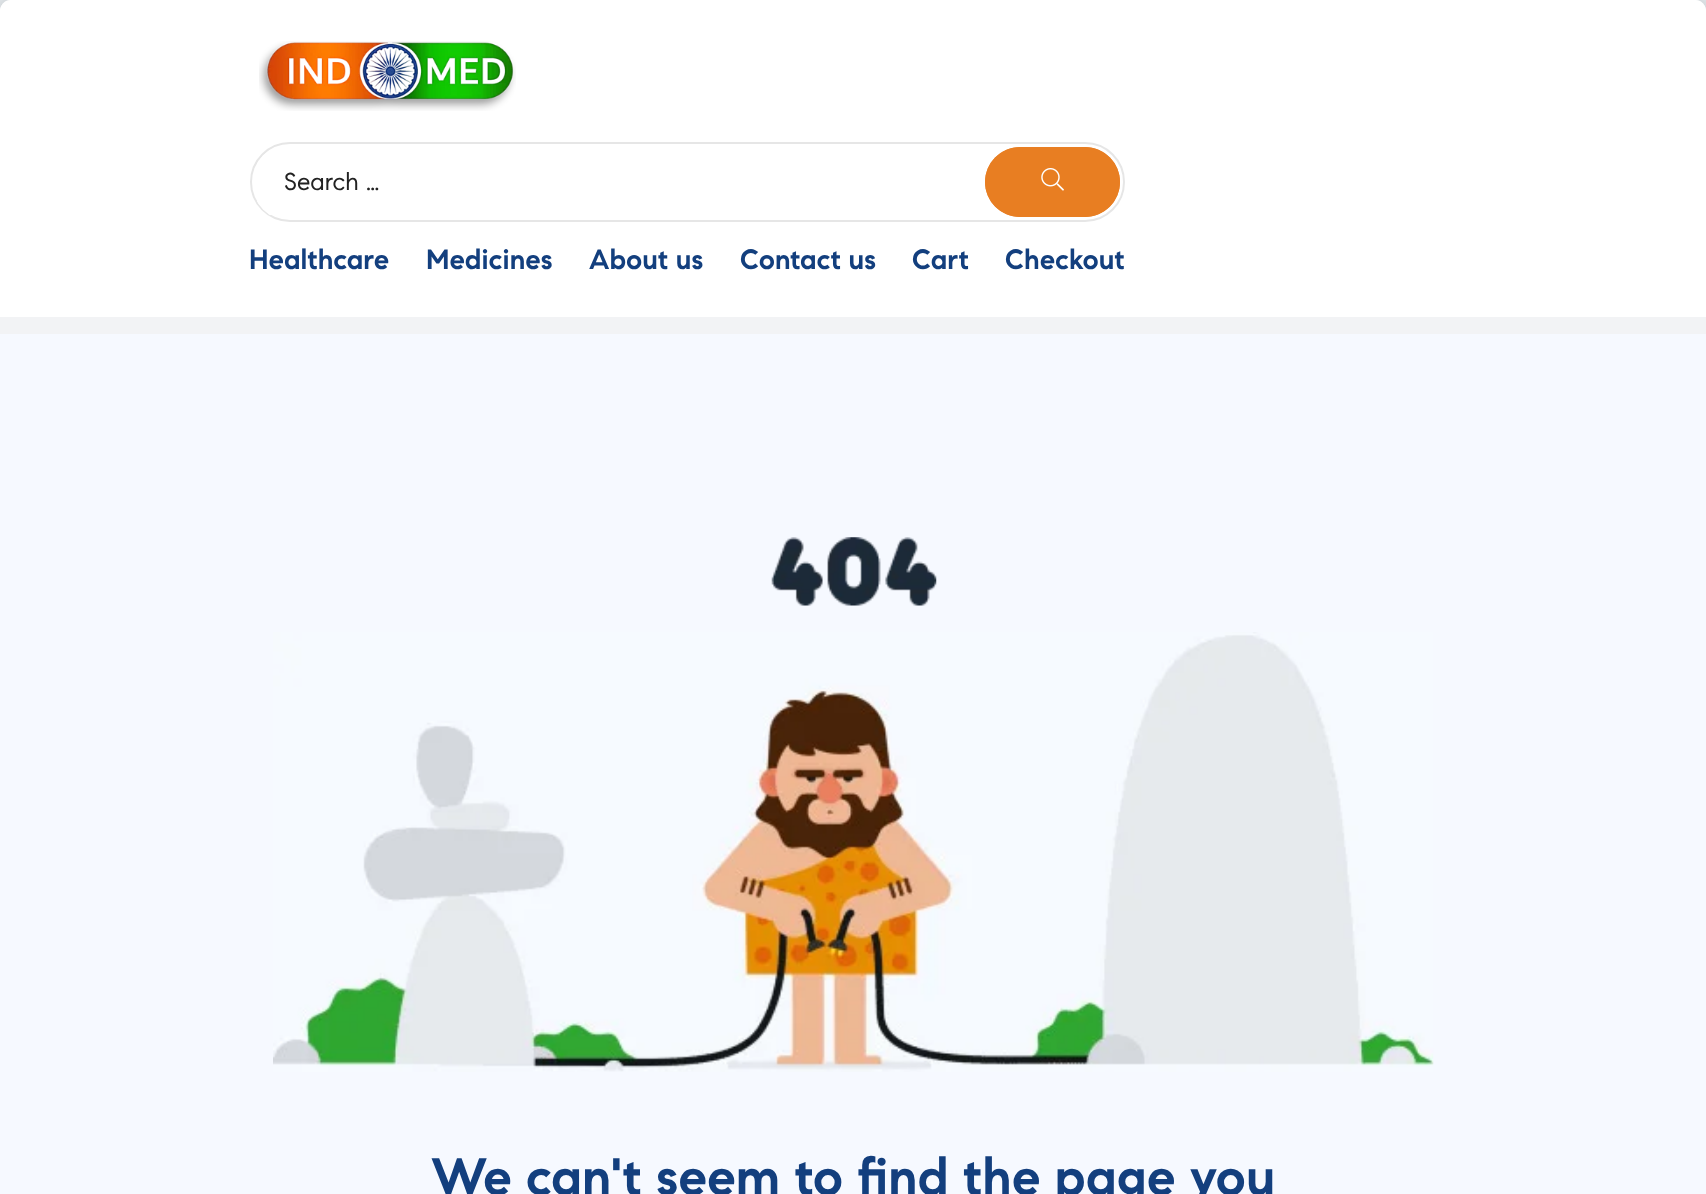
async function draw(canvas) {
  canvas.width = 1706
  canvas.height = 1194
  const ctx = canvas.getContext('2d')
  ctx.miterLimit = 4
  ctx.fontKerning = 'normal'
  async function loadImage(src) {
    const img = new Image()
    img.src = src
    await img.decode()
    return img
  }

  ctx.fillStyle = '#ebf0f4'
  ctx.fillRect(0, 0, 1706, 1194)
  ctx.fillStyle = '#00000040'
  ctx.filter = 'blur(13px)'
  ctx.beginPath()
  ctx.roundRect(0, 0, 1706, 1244, 11)
  ctx.fill()
  ctx.filter = 'none'
  ctx.fillStyle = '#f2f3f5'
  ctx.beginPath()
  ctx.roundRect(0, 0, 1706, 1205, 11)
  ctx.fill()
  ctx.fillStyle = '#fff'
  ctx.beginPath()
  ctx.roundRect(0, 0, 1706, 317, [11, 11, 0, 0])
  ctx.fill()
  ctx.drawImage(await loadImage('image0.png'), 259, 41, 257, 70)
  ctx.beginPath()
  ctx.roundRect(251, 143, 873, 78, 39)
  ctx.strokeStyle = '#e6e6e6'
  ctx.lineWidth = 2
  ctx.stroke()
  ctx.save()
  ctx.beginPath()
  ctx.roundRect(252, 144, 872, 77, 38.5)
  ctx.clip()
  ctx.fillRect(257, 149, 723, 66)
  ctx.restore()
  ctx.font = '24.5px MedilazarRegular'
  ctx.fillStyle = '#222'
  ctx.fillText('Search …', 284, 190)
  ctx.fillStyle = '#e87e22'
  ctx.beginPath()
  ctx.roundRect(985, 147, 135, 70, 35)
  ctx.fill()
  ctx.beginPath()
  ctx.moveTo(1020, 147)
  ctx.lineTo(1085, 147)
  ctx.bezierCurveTo(1104, 147, 1120, 163, 1120, 182)
  ctx.bezierCurveTo(1120, 201, 1104, 217, 1085, 217)
  ctx.lineTo(1020, 217)
  ctx.bezierCurveTo(1001, 217, 985, 201, 985, 182)
  ctx.bezierCurveTo(985, 163, 1001, 147, 1020, 147)
  ctx.closePath()
  ctx.fill()
  ctx.drawImage(await loadImage('image1.png'), 1041, 168, 23, 23)
  ctx.font = 'bold 28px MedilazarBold'
  ctx.fillStyle = '#133f7e'
  ctx.fillText('Healthcare', 249, 269)
  ctx.fillText('Medicines', 426, 269)
  ctx.fillText('About us', 589, 269)
  ctx.fillText('Contact us', 740, 269)
  ctx.fillText('Cart', 912, 269)
  ctx.fillText('Checkout', 1005, 269)
  ctx.fillStyle = '#f6f9ff'
  ctx.fillRect(0, 334, 1706, 860)
  ctx.drawImage(await loadImage('image2.png'), 771, 537, 166, 69)
  ctx.drawImage(await loadImage('image3.png'), 273, 632, 1161, 440)
  ctx.font = 'bold 52.5px MedilazarBold'
  ctx.fillStyle = '#133f7e'
  ctx.fillText('We can\'t seem to find the page you', 431, 1195)
}

draw(document.querySelector('canvas'))
